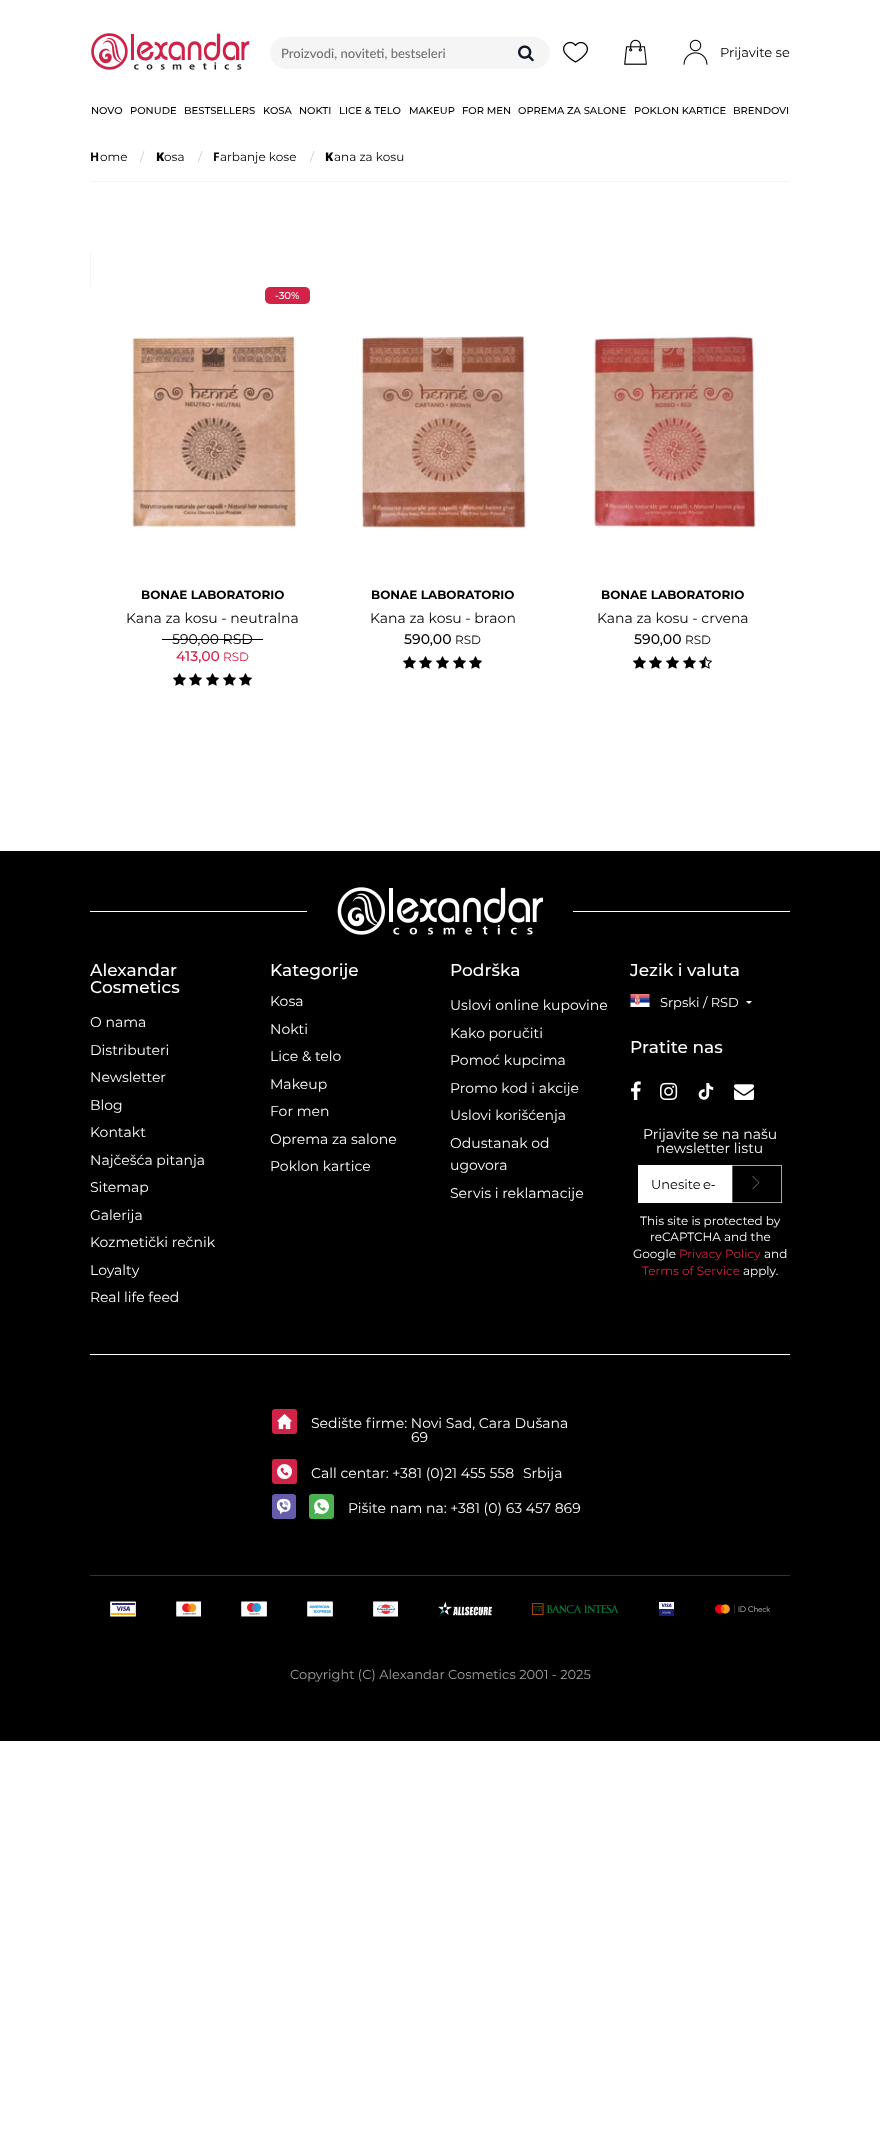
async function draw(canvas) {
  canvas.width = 880
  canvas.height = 2131
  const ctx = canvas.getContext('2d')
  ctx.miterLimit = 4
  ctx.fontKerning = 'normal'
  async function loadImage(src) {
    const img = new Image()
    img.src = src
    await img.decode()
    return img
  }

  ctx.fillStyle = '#fff'
  ctx.fillRect(0, 0, 880, 2131)
  ctx.drawImage(await loadImage('image0.png'), 91, 33, 159, 37)
  ctx.fillStyle = '#f5f5f5'
  ctx.beginPath()
  ctx.roundRect(270, 37, 280, 32, 16)
  ctx.fill()
  ctx.font = '500 13px Lato'
  ctx.fillStyle = '#717171'
  ctx.fillText('Proizvodi, noviteti, bestseleri', 281, 58)
  ctx.drawImage(await loadImage('image1.png'), 518, 45, 16, 17)
  ctx.drawImage(await loadImage('image2.png'), 563, 41, 25, 22)
  ctx.drawImage(await loadImage('image3.png'), 624, 39, 23, 26)
  ctx.drawImage(await loadImage('image4.png'), 683, 39, 25, 26)
  ctx.font = '13px Montserrat'
  ctx.fillStyle = '#000'
  ctx.fillText('Prijavite se', 720, 57)
  ctx.font = '500 10px Montserrat'
  ctx.fillText('NOVO', 91, 114)
  ctx.fillText('PONUDE', 130, 114)
  ctx.fillText('BESTSELLERS', 184, 114)
  ctx.fillText('KOSA', 263, 114)
  ctx.fillText('NOKTI', 299, 114)
  ctx.fillText('LICE & TELO', 339, 114)
  ctx.fillText('MAKEUP', 409, 114)
  ctx.fillText('FOR MEN', 462, 114)
  ctx.fillText('OPREMA ZA SALONE', 518, 114)
  ctx.fillText('POKLON KARTICE', 634, 114)
  ctx.fillText('BRENDOVI', 733, 114)
  ctx.font = 'bold 12px Noto Sans'
  ctx.fillText('H', 90, 161)
  ctx.font = '12px Montserrat'
  ctx.fillText('ome', 100, 161)
  ctx.fillStyle = '#ccc'
  ctx.fillText('/', 140, 161)
  ctx.font = '900 12px Noto Sans'
  ctx.fillStyle = '#000'
  ctx.fillText('K', 156, 161)
  ctx.font = '12px Montserrat'
  ctx.fillText('osa', 164, 161)
  ctx.fillStyle = '#ccc'
  ctx.fillText('/', 198, 161)
  ctx.font = 'bold 12px Noto Sans'
  ctx.fillStyle = '#000'
  ctx.fillText('F', 213, 161)
  ctx.font = '12px Montserrat'
  ctx.fillText('arbanje kose', 220, 161)
  ctx.fillStyle = '#ccc'
  ctx.fillText('/', 310, 161)
  ctx.font = '900 12px Noto Sans'
  ctx.fillStyle = '#000'
  ctx.fillText('K', 325, 161)
  ctx.font = '12px Montserrat'
  ctx.fillText('ana za kosu', 334, 161)
  ctx.fillStyle = '#f5f5f5'
  ctx.fillRect(90, 181, 700, 1)
  ctx.fillRect(90, 252, 1, 35)
  ctx.fillStyle = '#d12248'
  ctx.beginPath()
  ctx.roundRect(265, 287, 45, 17, 5)
  ctx.fill()
  ctx.font = '500 10px Montserrat'
  ctx.fillStyle = '#fff'
  ctx.fillText('-30%', 275, 299)
  ctx.drawImage(await loadImage('image5.png'), 132, 336, 165, 192)
  ctx.font = 'bold 12px Montserrat'
  ctx.fillStyle = '#000'
  ctx.fillText('BONAE LABORATORIO', 141, 599)
  ctx.font = '14px Montserrat'
  ctx.fillText('Kana za kosu - neutralna', 126, 623)
  ctx.fillText('590,00 RSD', 172, 644)
  ctx.fillRect(162, 639, 101, 1)
  ctx.font = '500 14px Montserrat'
  ctx.fillStyle = '#d12248'
  ctx.fillText('413,00', 176, 661)
  ctx.font = '12px Montserrat'
  ctx.fillText('RSD', 223, 661)
  ctx.drawImage(await loadImage('image6.png'), 173, 673, 13, 13)
  ctx.drawImage(await loadImage('image6.png'), 189, 673, 13, 13)
  ctx.drawImage(await loadImage('image6.png'), 206, 673, 13, 13)
  ctx.drawImage(await loadImage('image6.png'), 223, 673, 13, 13)
  ctx.drawImage(await loadImage('image6.png'), 239, 673, 13, 13)
  ctx.drawImage(await loadImage('image7.png'), 361, 335, 165, 195)
  ctx.font = 'bold 12px Montserrat'
  ctx.fillStyle = '#000'
  ctx.fillText('BONAE LABORATORIO', 371, 599)
  ctx.font = '14px Montserrat'
  ctx.fillText('Kana za kosu - braon', 370, 623)
  ctx.font = '500 14px Montserrat'
  ctx.fillText('590,00', 404, 644)
  ctx.font = '12px Montserrat'
  ctx.fillText('RSD', 455, 644)
  ctx.drawImage(await loadImage('image6.png'), 403, 656, 13, 13)
  ctx.drawImage(await loadImage('image6.png'), 419, 656, 13, 13)
  ctx.drawImage(await loadImage('image6.png'), 436, 656, 13, 13)
  ctx.drawImage(await loadImage('image6.png'), 453, 656, 13, 13)
  ctx.drawImage(await loadImage('image6.png'), 469, 656, 13, 13)
  ctx.drawImage(await loadImage('image8.png'), 592, 332, 164, 198)
  ctx.font = 'bold 12px Montserrat'
  ctx.fillText('BONAE LABORATORIO', 601, 599)
  ctx.font = '14px Montserrat'
  ctx.fillText('Kana za kosu - crvena', 597, 623)
  ctx.font = '500 14px Montserrat'
  ctx.fillText('590,00', 634, 644)
  ctx.font = '12px Montserrat'
  ctx.fillText('RSD', 685, 644)
  ctx.drawImage(await loadImage('image6.png'), 633, 656, 13, 13)
  ctx.drawImage(await loadImage('image6.png'), 649, 656, 13, 13)
  ctx.drawImage(await loadImage('image6.png'), 666, 656, 13, 13)
  ctx.drawImage(await loadImage('image6.png'), 683, 656, 13, 13)
  ctx.drawImage(await loadImage('image9.png'), 699, 656, 13, 13)
  ctx.fillRect(0, 851, 880, 890)
  ctx.fillStyle = '#a6a6a6'
  ctx.fillRect(732, 1202, 50, 1)
  ctx.fillRect(732, 1165, 50, 1)
  ctx.fillStyle = '#fff'
  ctx.fillRect(90, 1354, 700, 1)
  ctx.fillRect(90, 911, 700, 1)
  ctx.fillStyle = '#000'
  ctx.fillRect(307, 911, 266, 1)
  ctx.drawImage(await loadImage('image10.png'), 337, 887, 206, 48)
  ctx.font = '500 17px Montserrat'
  ctx.fillStyle = '#fff'
  ctx.fillText('Alexandar', 90, 976)
  ctx.fillText('Cosmetics', 90, 993)
  ctx.font = '14px Montserrat'
  ctx.fillText('O nama', 90, 1027)
  ctx.fillText('Distributeri', 90, 1055)
  ctx.fillText('Newsletter', 90, 1082)
  ctx.fillText('Blog', 90, 1110)
  ctx.fillText('Kontakt', 90, 1137)
  ctx.fillText('Najčešća pitanja', 90, 1165)
  ctx.fillText('Sitemap', 90, 1192)
  ctx.fillText('Galerija', 90, 1220)
  ctx.fillText('Kozmetički rečnik', 90, 1247)
  ctx.fillText('Loyalty', 90, 1275)
  ctx.fillText('Real life feed', 90, 1302)
  ctx.font = '500 17px Montserrat'
  ctx.fillText('Kategorije', 270, 976)
  ctx.font = '14px Montserrat'
  ctx.fillText('Kosa', 270, 1006)
  ctx.fillText('Nokti', 270, 1034)
  ctx.fillText('Lice & telo', 270, 1061)
  ctx.fillText('Makeup', 270, 1089)
  ctx.fillText('For men', 270, 1116)
  ctx.fillText('Oprema za salone', 270, 1144)
  ctx.fillText('Poklon kartice', 270, 1171)
  ctx.font = '500 17px Montserrat'
  ctx.fillText('Podrška', 450, 976)
  ctx.font = '14px Montserrat'
  ctx.fillText('Uslovi online kupovine', 450, 1010)
  ctx.fillText('Kako poručiti', 450, 1038)
  ctx.fillText('Pomoć kupcima', 450, 1065)
  ctx.fillText('Promo kod i akcije', 450, 1093)
  ctx.fillText('Uslovi korišćenja', 450, 1120)
  ctx.fillText('Odustanak od', 450, 1148)
  ctx.fillText('ugovora', 450, 1170)
  ctx.fillText('Servis i reklamacije', 450, 1198)
  ctx.font = '500 17px Montserrat'
  ctx.fillText('Jezik i valuta', 630, 976)
  ctx.drawImage(await loadImage('image11.png'), 630, 994, 20, 13)
  ctx.font = '13px Montserrat'
  ctx.fillText('Srpski / RSD', 660, 1007)
  ctx.beginPath()
  ctx.moveTo(746, 1001)
  ctx.lineTo(752, 1001)
  ctx.lineTo(749, 1004)
  ctx.closePath()
  ctx.fill()
  ctx.font = '500 17px Montserrat'
  ctx.fillText('Pratite nas', 630, 1053)
  ctx.drawImage(await loadImage('image12.png'), 631, 1081, 10, 19)
  ctx.drawImage(await loadImage('image13.png'), 660, 1082, 18, 18)
  ctx.drawImage(await loadImage('image14.png'), 698, 1083, 16, 17)
  ctx.drawImage(await loadImage('image15.png'), 734, 1084, 20, 16)
  ctx.font = '14px Montserrat'
  ctx.fillText('Prijavite se na našu', 643, 1139)
  ctx.fillText('newsletter listu', 656, 1153)
  ctx.fillRect(639, 1166, 93, 36)
  ctx.fillStyle = '#595959'
  ctx.fillRect(732, 1166, 1, 36)
  ctx.fillStyle = '#fff'
  ctx.fillRect(638, 1165, 95, 1)
  ctx.fillStyle = '#c5c5c5'
  ctx.fillRect(732, 1165, 1, 1)
  ctx.fillStyle = '#fff'
  ctx.fillRect(638, 1202, 95, 1)
  ctx.fillStyle = '#c5c5c5'
  ctx.fillRect(732, 1202, 1, 1)
  ctx.fillStyle = '#fff'
  ctx.fillRect(638, 1165, 1, 38)
  ctx.wordSpacing = '-1px'
  ctx.font = '13px Montserrat'
  ctx.fillStyle = '#000'
  ctx.fillText('Unesite e‑', 651, 1189)
  ctx.fillStyle = '#a6a6a6'
  ctx.fillRect(781, 1165, 1, 38)
  ctx.fillStyle = '#e0e0e0'
  ctx.fillRect(781, 1202, 1, 1)
  ctx.drawImage(await loadImage('image16.png'), 752, 1176, 8, 14)
  ctx.wordSpacing = '0px'
  ctx.font = '12px Montserrat'
  ctx.fillStyle = '#fff'
  ctx.fillText('This site is protected by', 640, 1225)
  ctx.fillText('reCAPTCHA and the', 650, 1241)
  ctx.fillText('Google', 633, 1258)
  ctx.fillStyle = '#d12248'
  ctx.fillText('Privacy Policy', 679, 1258)
  ctx.fillStyle = '#fff'
  ctx.fillText('and', 764, 1258)
  ctx.fillStyle = '#d12248'
  ctx.fillText('Terms of Service', 642, 1275)
  ctx.fillStyle = '#fff'
  ctx.fillText('apply.', 743, 1275)
  ctx.fillStyle = '#d12248'
  ctx.beginPath()
  ctx.roundRect(272, 1409, 25, 25, 3)
  ctx.fill()
  ctx.drawImage(await loadImage('image17.png'), 277, 1414, 15, 16)
  ctx.font = '14px Montserrat'
  ctx.fillStyle = '#fff'
  ctx.fillText('Sedište firme: Novi Sad, Cara Dušana', 311, 1428)
  ctx.fillText('69', 411, 1442)
  ctx.fillStyle = '#d12248'
  ctx.beginPath()
  ctx.roundRect(272, 1459, 25, 25, 3)
  ctx.fill()
  ctx.drawImage(await loadImage('image18.png'), 277, 1464, 15, 16)
  ctx.fillStyle = '#fff'
  ctx.fillText('Call centar: +381 (0)21 455 558', 311, 1478)
  ctx.fillText('Srbija', 523, 1478)
  ctx.fillStyle = '#665cac'
  ctx.beginPath()
  ctx.roundRect(272, 1494, 24, 25, 3)
  ctx.fill()
  ctx.fillStyle = '#4caf50'
  ctx.beginPath()
  ctx.roundRect(309, 1494, 25, 25, 3)
  ctx.fill()
  ctx.drawImage(await loadImage('image19.png'), 277, 1499, 14, 15)
  ctx.drawImage(await loadImage('image20.png'), 314, 1499, 15, 16)
  ctx.fillStyle = '#fff'
  ctx.fillText('Pišite nam na: +381 (0) 63 457 869', 348, 1513)
  ctx.fillStyle = '#333'
  ctx.fillRect(90, 1575, 700, 1)
  ctx.drawImage(await loadImage('image21.png'), 110, 1601, 26, 16)
  ctx.drawImage(await loadImage('image22.png'), 176, 1601, 25, 16)
  ctx.drawImage(await loadImage('image23.png'), 241, 1601, 26, 16)
  ctx.drawImage(await loadImage('image24.png'), 307, 1601, 26, 16)
  ctx.drawImage(await loadImage('image25.png'), 373, 1601, 25, 16)
  ctx.drawImage(await loadImage('image26.png'), 438, 1601, 54, 16)
  ctx.drawImage(await loadImage('image27.png'), 532, 1603, 87, 12)
  ctx.drawImage(await loadImage('image28.png'), 659, 1602, 15, 14)
  ctx.drawImage(await loadImage('image29.png'), 715, 1604, 55, 10)
  ctx.font = '13px Montserrat'
  ctx.fillStyle = '#a19fa0'
  ctx.fillText('Copyright (C) Alexandar Cosmetics 2001 - 2025', 290, 1679)
}

draw(document.querySelector('canvas'))
